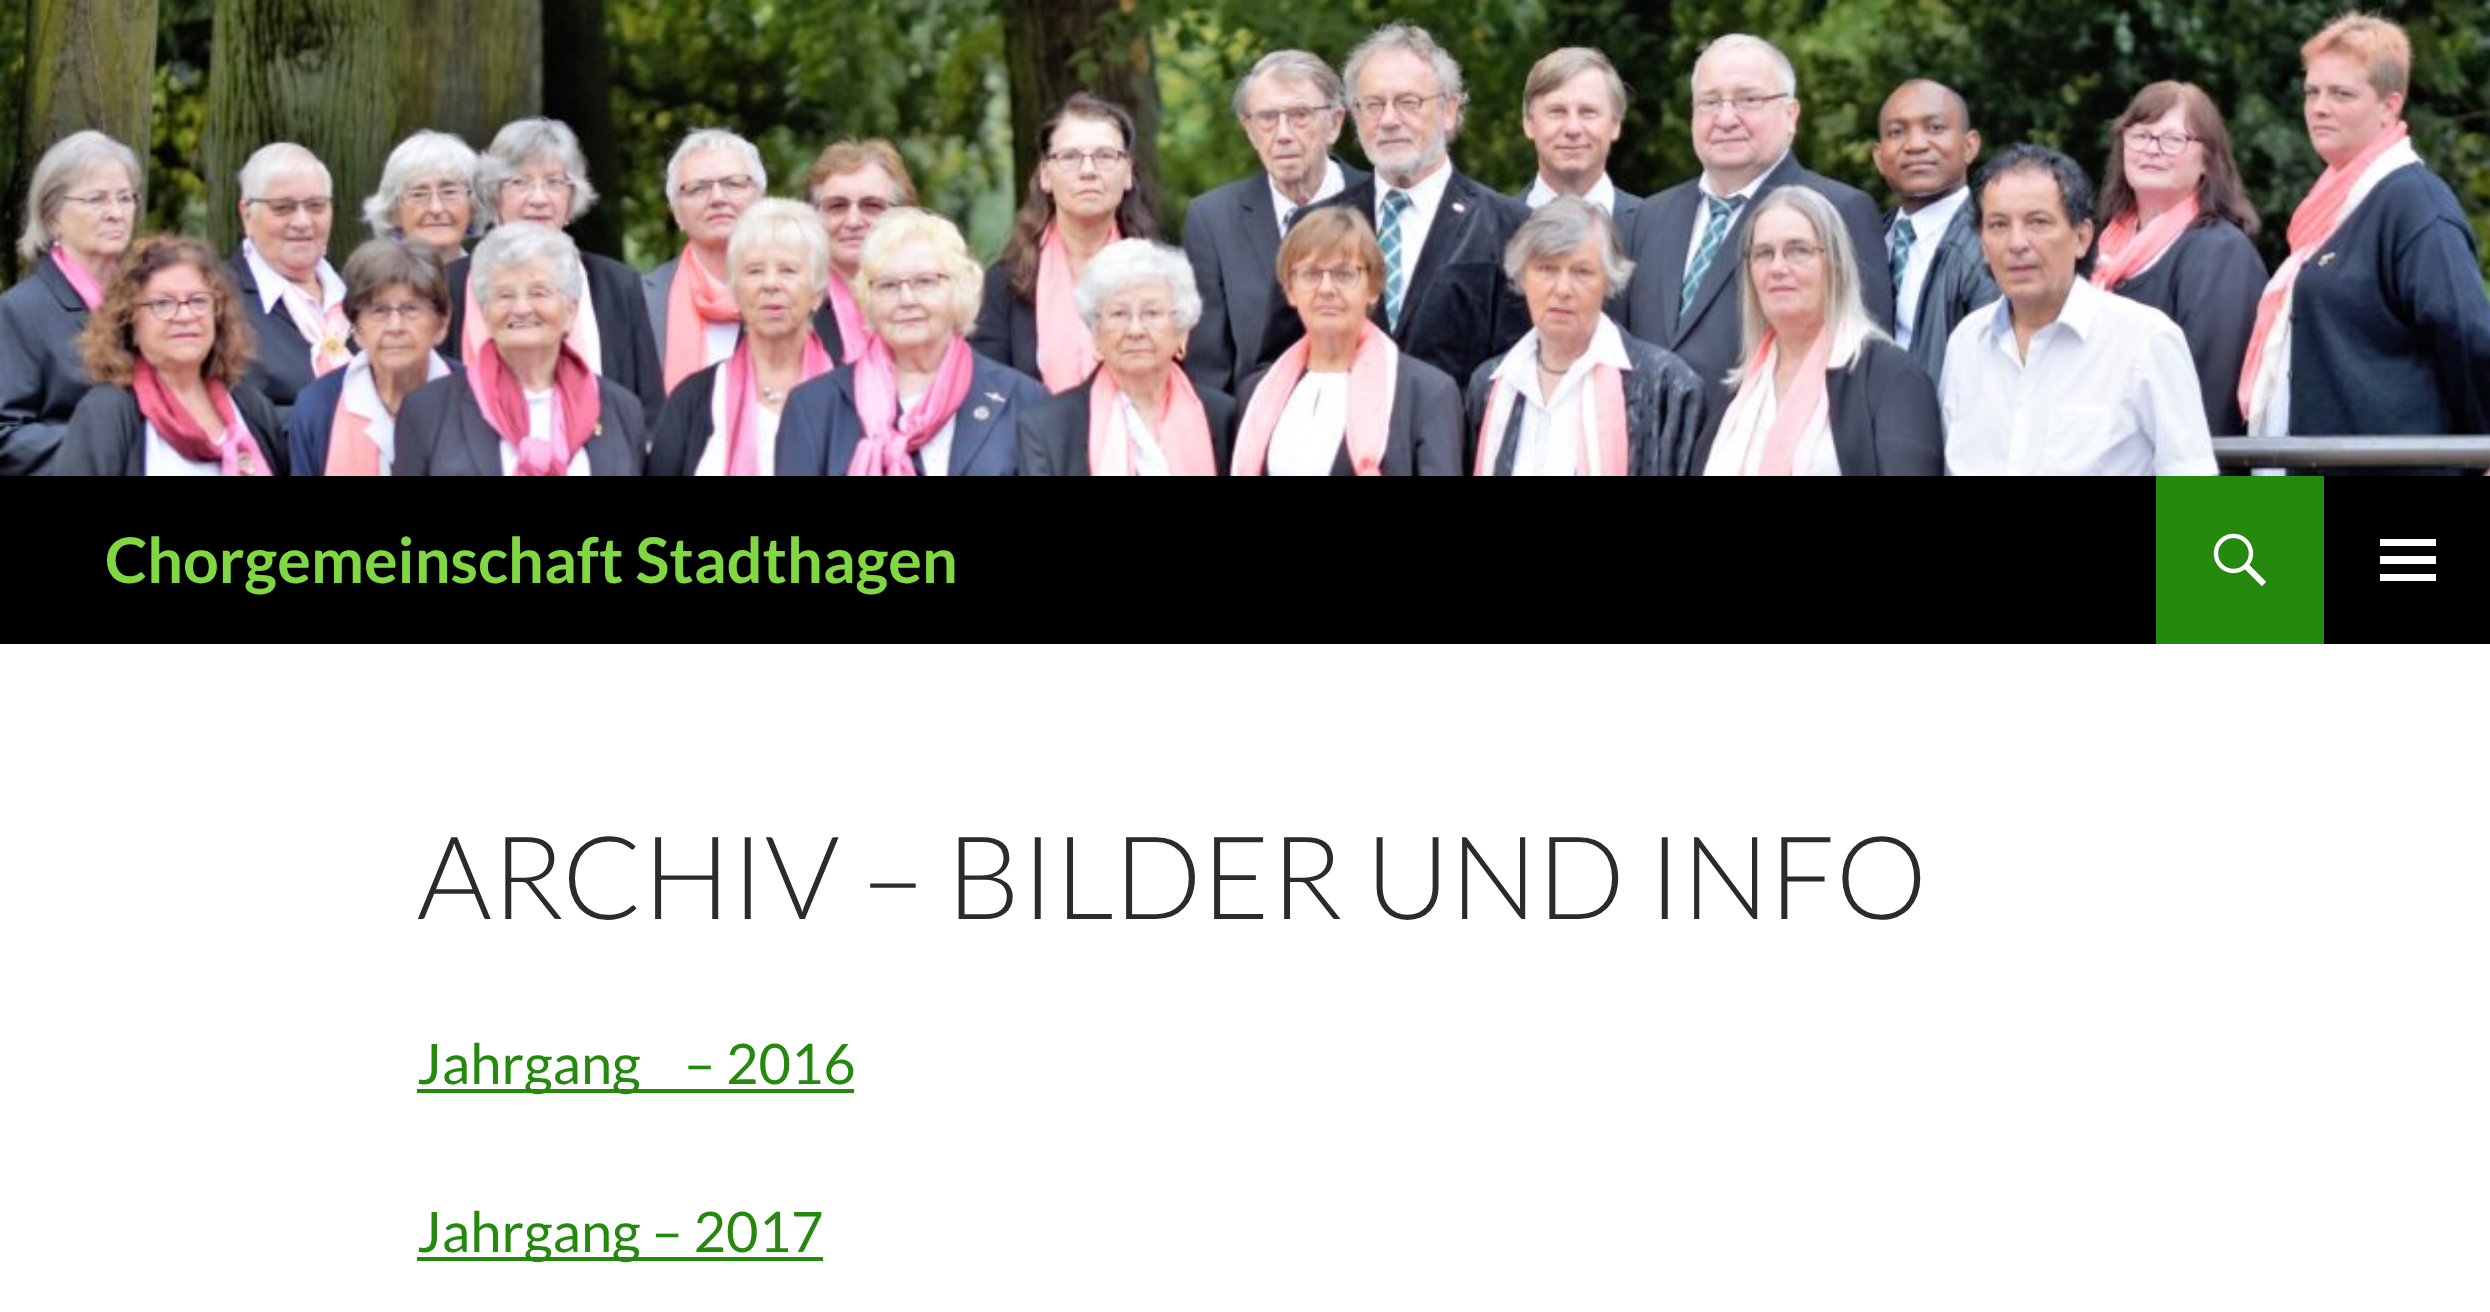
async function draw(canvas) {
  canvas.width = 2490
  canvas.height = 1312
  const ctx = canvas.getContext('2d')
  ctx.miterLimit = 4
  ctx.fontKerning = 'normal'
  async function loadImage(src) {
    const img = new Image()
    img.src = src
    await img.decode()
    return img
  }

  ctx.fillStyle = '#fff'
  ctx.fillRect(0, 0, 2490, 1312)
  ctx.drawImage(await loadImage('image0.png'), 0, 0, 2490, 476)
  ctx.fillStyle = '#000'
  ctx.fillRect(0, 476, 2490, 168)
  ctx.font = 'bold 63px Lato'
  ctx.fillStyle = '#81d742'
  ctx.fillText('Chorgemeinschaft Stadthagen', 105, 583)
  ctx.fillStyle = '#24890d'
  ctx.fillRect(2156, 476, 168, 168)
  ctx.drawImage(await loadImage('image1.png'), 2213, 533, 54, 54)
  ctx.fillStyle = '#fff'
  ctx.beginPath()
  ctx.moveTo(2380, 581)
  ctx.lineTo(2380, 574)
  ctx.lineTo(2436, 574)
  ctx.lineTo(2436, 581)
  ctx.closePath()
  ctx.moveTo(2380, 564)
  ctx.lineTo(2380, 556)
  ctx.lineTo(2436, 556)
  ctx.lineTo(2436, 564)
  ctx.closePath()
  ctx.moveTo(2380, 546)
  ctx.lineTo(2380, 539)
  ctx.lineTo(2436, 539)
  ctx.lineTo(2436, 546)
  ctx.closePath()
  ctx.fill()
  ctx.font = '300 115.5px Lato'
  ctx.fillStyle = '#2b2b2b'
  ctx.fillText('ARCHIV – BILDER UND INFO', 417, 919)
  ctx.fillStyle = '#24890d'
  ctx.fillRect(417, 1089, 437, 4)
  ctx.font = '56px Lato'
  ctx.fillText('Jahrgang    – 2016', 417, 1084)
  ctx.fillRect(417, 1257, 406, 4)
  ctx.fillText('Jahrgang – 2017', 417, 1252)
}

draw(document.querySelector('canvas'))
